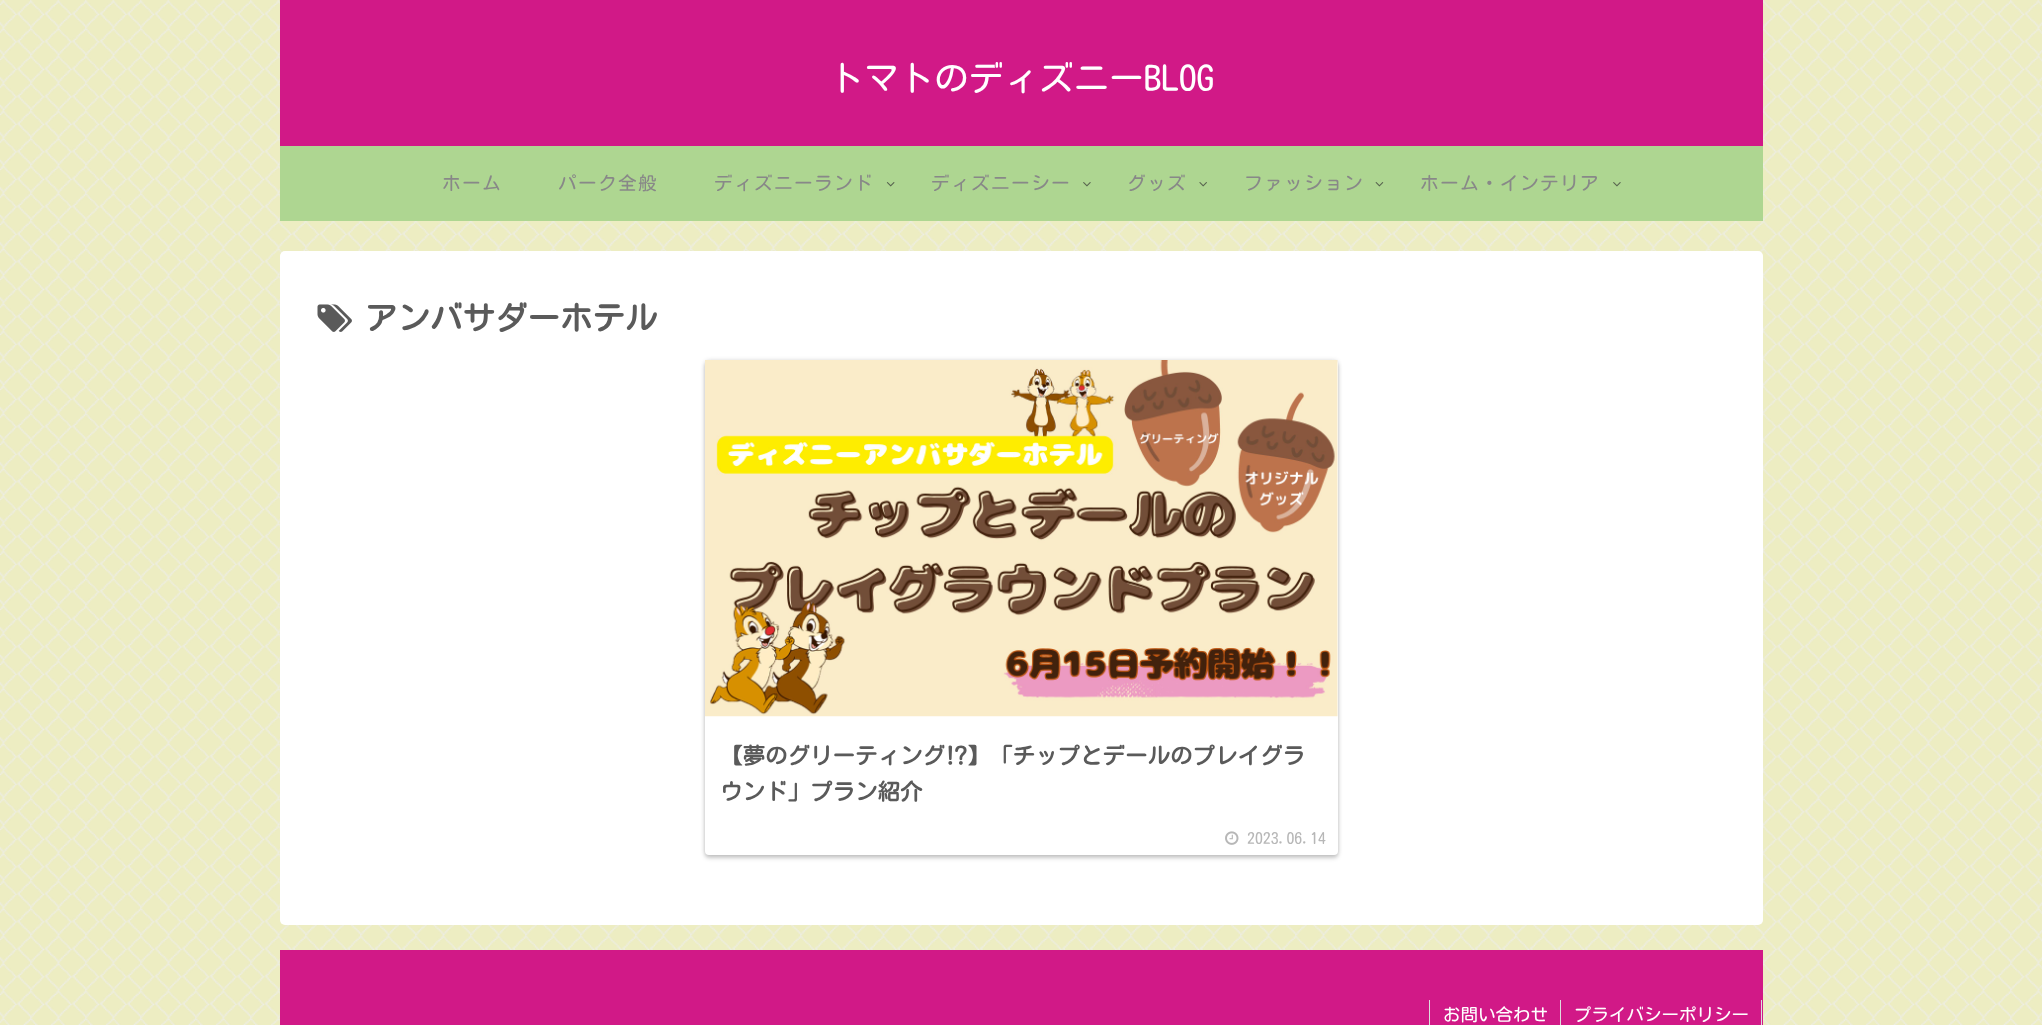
async function draw(canvas) {
  canvas.width = 2042
  canvas.height = 1025
  const ctx = canvas.getContext('2d')
  ctx.miterLimit = 4
  ctx.fontKerning = 'normal'
  async function loadImage(src) {
    const img = new Image()
    img.src = src
    await img.decode()
    return img
  }

  ctx.fillStyle = '#ededc2'
  ctx.fillRect(0, 0, 2042, 1025)
  ctx.drawImage(await loadImage('image0.png'), 0, 0, 2042, 1025)
  ctx.fillStyle = '#d11987'
  ctx.fillRect(280, 0, 1483, 146)
  ctx.font = '35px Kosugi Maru'
  ctx.fillStyle = '#fff'
  ctx.fillText('トマトのディズニーBLOG', 829, 91)
  ctx.fillStyle = '#aed691'
  ctx.fillRect(280, 146, 1483, 75)
  ctx.letterSpacing = '1.25px'
  ctx.font = '18.75px Kosugi Maru'
  ctx.fillStyle = '#888'
  ctx.fillText('ホーム', 442, 190)
  ctx.fillText('パーク全般', 558, 190)
  ctx.fillText('ディズニーランド', 714, 190)
  ctx.drawImage(await loadImage('image1.png'), 886, 182, 9, 5)
  ctx.fillText('ディズニーシー', 931, 190)
  ctx.drawImage(await loadImage('image2.png'), 1083, 182, 8, 5)
  ctx.fillText('グッズ', 1127, 190)
  ctx.drawImage(await loadImage('image3.png'), 1199, 182, 8, 5)
  ctx.fillText('ファッション', 1244, 190)
  ctx.drawImage(await loadImage('image4.png'), 1375, 182, 9, 5)
  ctx.fillText('ホーム・インテリア', 1420, 190)
  ctx.drawImage(await loadImage('image2.png'), 1613, 182, 8, 5)
  ctx.fillStyle = '#fff'
  ctx.beginPath()
  ctx.roundRect(280, 251, 1483, 674, 5)
  ctx.fill()
  ctx.drawImage(await loadImage('image5.png'), 317, 304, 35, 28)
  ctx.letterSpacing = '0px'
  ctx.font = 'bold 32.5px Kosugi Maru'
  ctx.fillStyle = '#5a5a5a'
  ctx.fillText('アンバサダーホテル', 365, 330)
  ctx.fillStyle = '#00000033'
  ctx.filter = 'blur(2px)'
  ctx.beginPath()
  ctx.roundRect(705, 363, 633, 495, 4)
  ctx.fill()
  ctx.filter = 'none'
  ctx.fillStyle = '#0000001f'
  ctx.filter = 'blur(2px)'
  ctx.beginPath()
  ctx.roundRect(705, 360, 633, 495, 4)
  ctx.fill()
  ctx.filter = 'none'
  ctx.fillStyle = '#fff'
  ctx.beginPath()
  ctx.roundRect(705, 360, 633, 495, 4)
  ctx.fill()
  ctx.drawImage(await loadImage('image6.png'), 705, 360, 633, 357)
  ctx.font = 'bold 22.5px Kosugi Maru'
  ctx.fillStyle = '#5a5a5a'
  ctx.fillText('【夢のグリーティング⁉】「チップとデールのプレイグラ', 720, 764)
  ctx.fillText('ウンド」プラン紹介', 720, 800)
  ctx.drawImage(await loadImage('image7.png'), 1225, 831, 14, 14)
  ctx.font = '15.75px Kosugi Maru'
  ctx.fillStyle = '#b7b7b7'
  ctx.fillText('2023.06.14', 1247, 844)
  ctx.fillStyle = '#d11987'
  ctx.fillRect(280, 950, 1483, 75)
  ctx.fillStyle = '#ddd'
  ctx.fillRect(1429, 1000, 1, 25)
  ctx.font = '17.5px Kosugi Maru'
  ctx.fillStyle = '#fff'
  ctx.fillText('お問い合わせ', 1443, 1021)
  ctx.fillStyle = '#ddd'
  ctx.fillRect(1761, 1000, 1, 25)
  ctx.fillRect(1560, 1000, 1, 25)
  ctx.fillStyle = '#fff'
  ctx.fillText('プライバシーポリシー', 1574, 1021)
}

draw(document.querySelector('canvas'))
